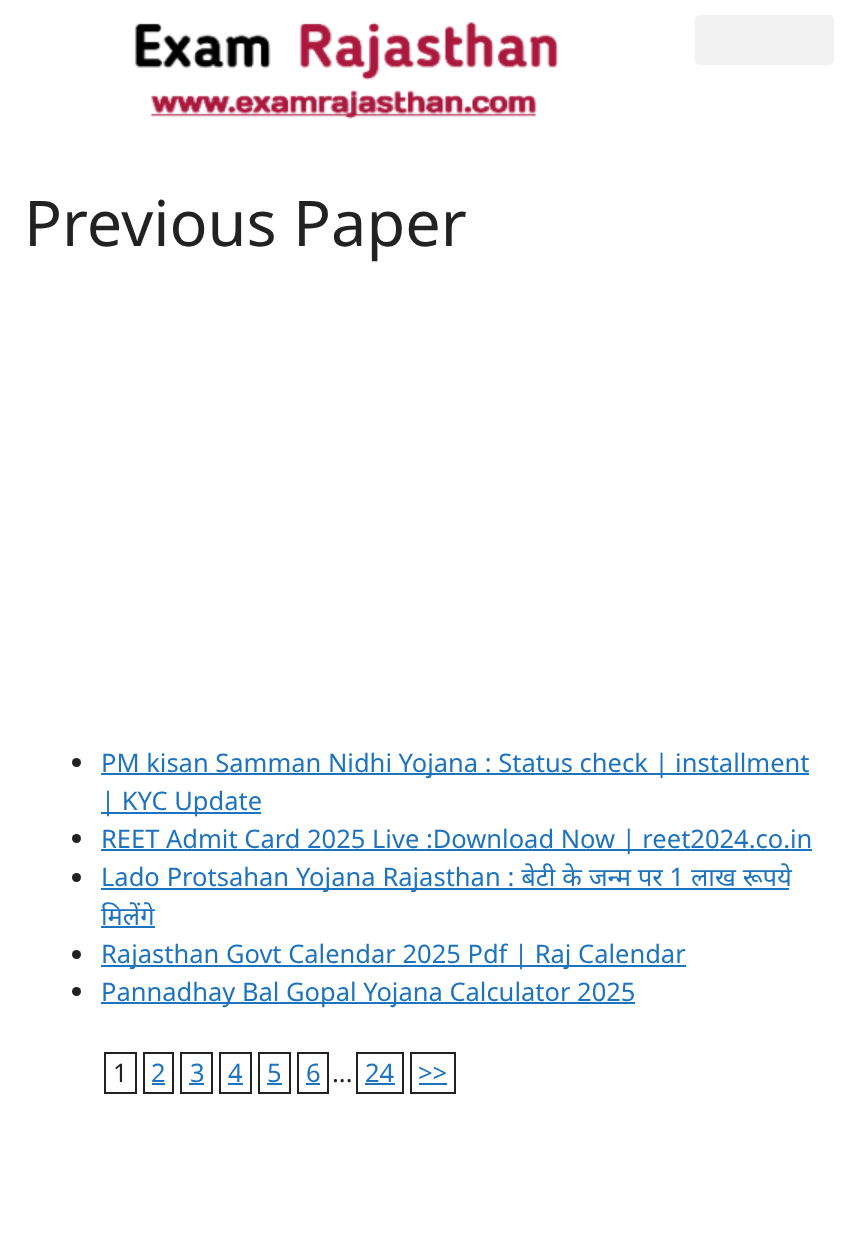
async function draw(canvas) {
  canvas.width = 848
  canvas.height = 1243
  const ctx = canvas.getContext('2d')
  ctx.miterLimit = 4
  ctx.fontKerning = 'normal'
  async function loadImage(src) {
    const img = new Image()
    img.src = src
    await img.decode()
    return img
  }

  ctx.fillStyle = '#fff'
  ctx.fillRect(0, 0, 848, 1243)
  ctx.drawImage(await loadImage('image0.png'), 134, 22, 425, 97)
  ctx.fillStyle = '#f2f2f2'
  ctx.beginPath()
  ctx.roundRect(695, 15, 139, 50, 5)
  ctx.fill()
  ctx.font = '63px Noto Sans'
  ctx.fillStyle = '#222'
  ctx.fillText('Previous Paper', 24, 246)
  ctx.beginPath()
  ctx.arc(76.5, 762.5, 4.5, 0, 2 * Math.PI)
  ctx.fill()
  ctx.fillStyle = '#1e73be'
  ctx.fillRect(101, 773, 708, 2)
  ctx.font = '25.5px Noto Sans'
  ctx.fillText('PM kisan Samman Nidhi Yojana : Status check | installment', 101, 772)
  ctx.fillRect(101, 812, 160, 2)
  ctx.fillText('| KYC Update', 101, 810)
  ctx.fillStyle = '#222'
  ctx.beginPath()
  ctx.arc(76.5, 838.5, 4.5, 0, 2 * Math.PI)
  ctx.fill()
  ctx.fillStyle = '#1e73be'
  ctx.fillRect(101, 849, 711, 2)
  ctx.fillText('REET Admit Card 2025 Live :Download Now | reet2024.co.in', 101, 848)
  ctx.fillStyle = '#222'
  ctx.beginPath()
  ctx.arc(76.5, 877.5, 4.5, 0, 2 * Math.PI)
  ctx.fill()
  ctx.fillStyle = '#1e73be'
  ctx.fillRect(101, 888, 688, 2)
  ctx.wordSpacing = '0.25px'
  ctx.fillText('Lado Protsahan Yojana Rajasthan : बेटी के जन्म पर 1 लाख रूपये', 101, 886)
  ctx.wordSpacing = '0px'
  ctx.fillText('मिलेंगे', 101, 925)
  ctx.fillRect(101, 926, 54, 2)
  ctx.fillStyle = '#222'
  ctx.beginPath()
  ctx.arc(76.5, 954.5, 4.5, 0, 2 * Math.PI)
  ctx.fill()
  ctx.fillStyle = '#1e73be'
  ctx.fillRect(101, 965, 585, 2)
  ctx.fillText('Rajasthan Govt Calendar 2025 Pdf | Raj Calendar', 101, 963)
  ctx.fillStyle = '#222'
  ctx.beginPath()
  ctx.arc(76.5, 991.5, 4.5, 0, 2 * Math.PI)
  ctx.fill()
  ctx.fillStyle = '#1e73be'
  ctx.fillRect(101, 1002, 534, 2)
  ctx.fillText('Pannadhay Bal Gopal Yojana Calculator 2025', 101, 1001)
  ctx.strokeStyle = '#222'
  ctx.lineWidth = 2
  ctx.strokeRect(105, 1053, 31, 40)
  ctx.fillStyle = '#222'
  ctx.fillText('1', 113, 1082)
  ctx.strokeRect(144, 1053, 29, 40)
  ctx.fillStyle = '#1e73be'
  ctx.fillText('2', 151, 1082)
  ctx.fillRect(152, 1083, 13, 2)
  ctx.strokeRect(181, 1053, 31, 40)
  ctx.fillText('3', 190, 1082)
  ctx.fillRect(189, 1083, 15, 2)
  ctx.strokeRect(220, 1053, 31, 40)
  ctx.fillText('4', 228, 1082)
  ctx.fillRect(228, 1083, 15, 2)
  ctx.strokeRect(259, 1053, 31, 40)
  ctx.fillText('5', 267, 1082)
  ctx.fillRect(267, 1083, 15, 2)
  ctx.strokeRect(298, 1053, 30, 40)
  ctx.fillText('6', 306, 1082)
  ctx.fillRect(306, 1083, 14, 2)
  ctx.strokeRect(357, 1053, 46, 40)
  ctx.fillText('24', 365, 1082)
  ctx.fillRect(365, 1083, 30, 2)
  ctx.strokeRect(411, 1053, 44, 40)
  ctx.fillText('>>', 418, 1082)
  ctx.fillRect(419, 1083, 28, 2)
  ctx.fillStyle = '#222'
  ctx.fillText('...', 332, 1082)
}

draw(document.querySelector('canvas'))
